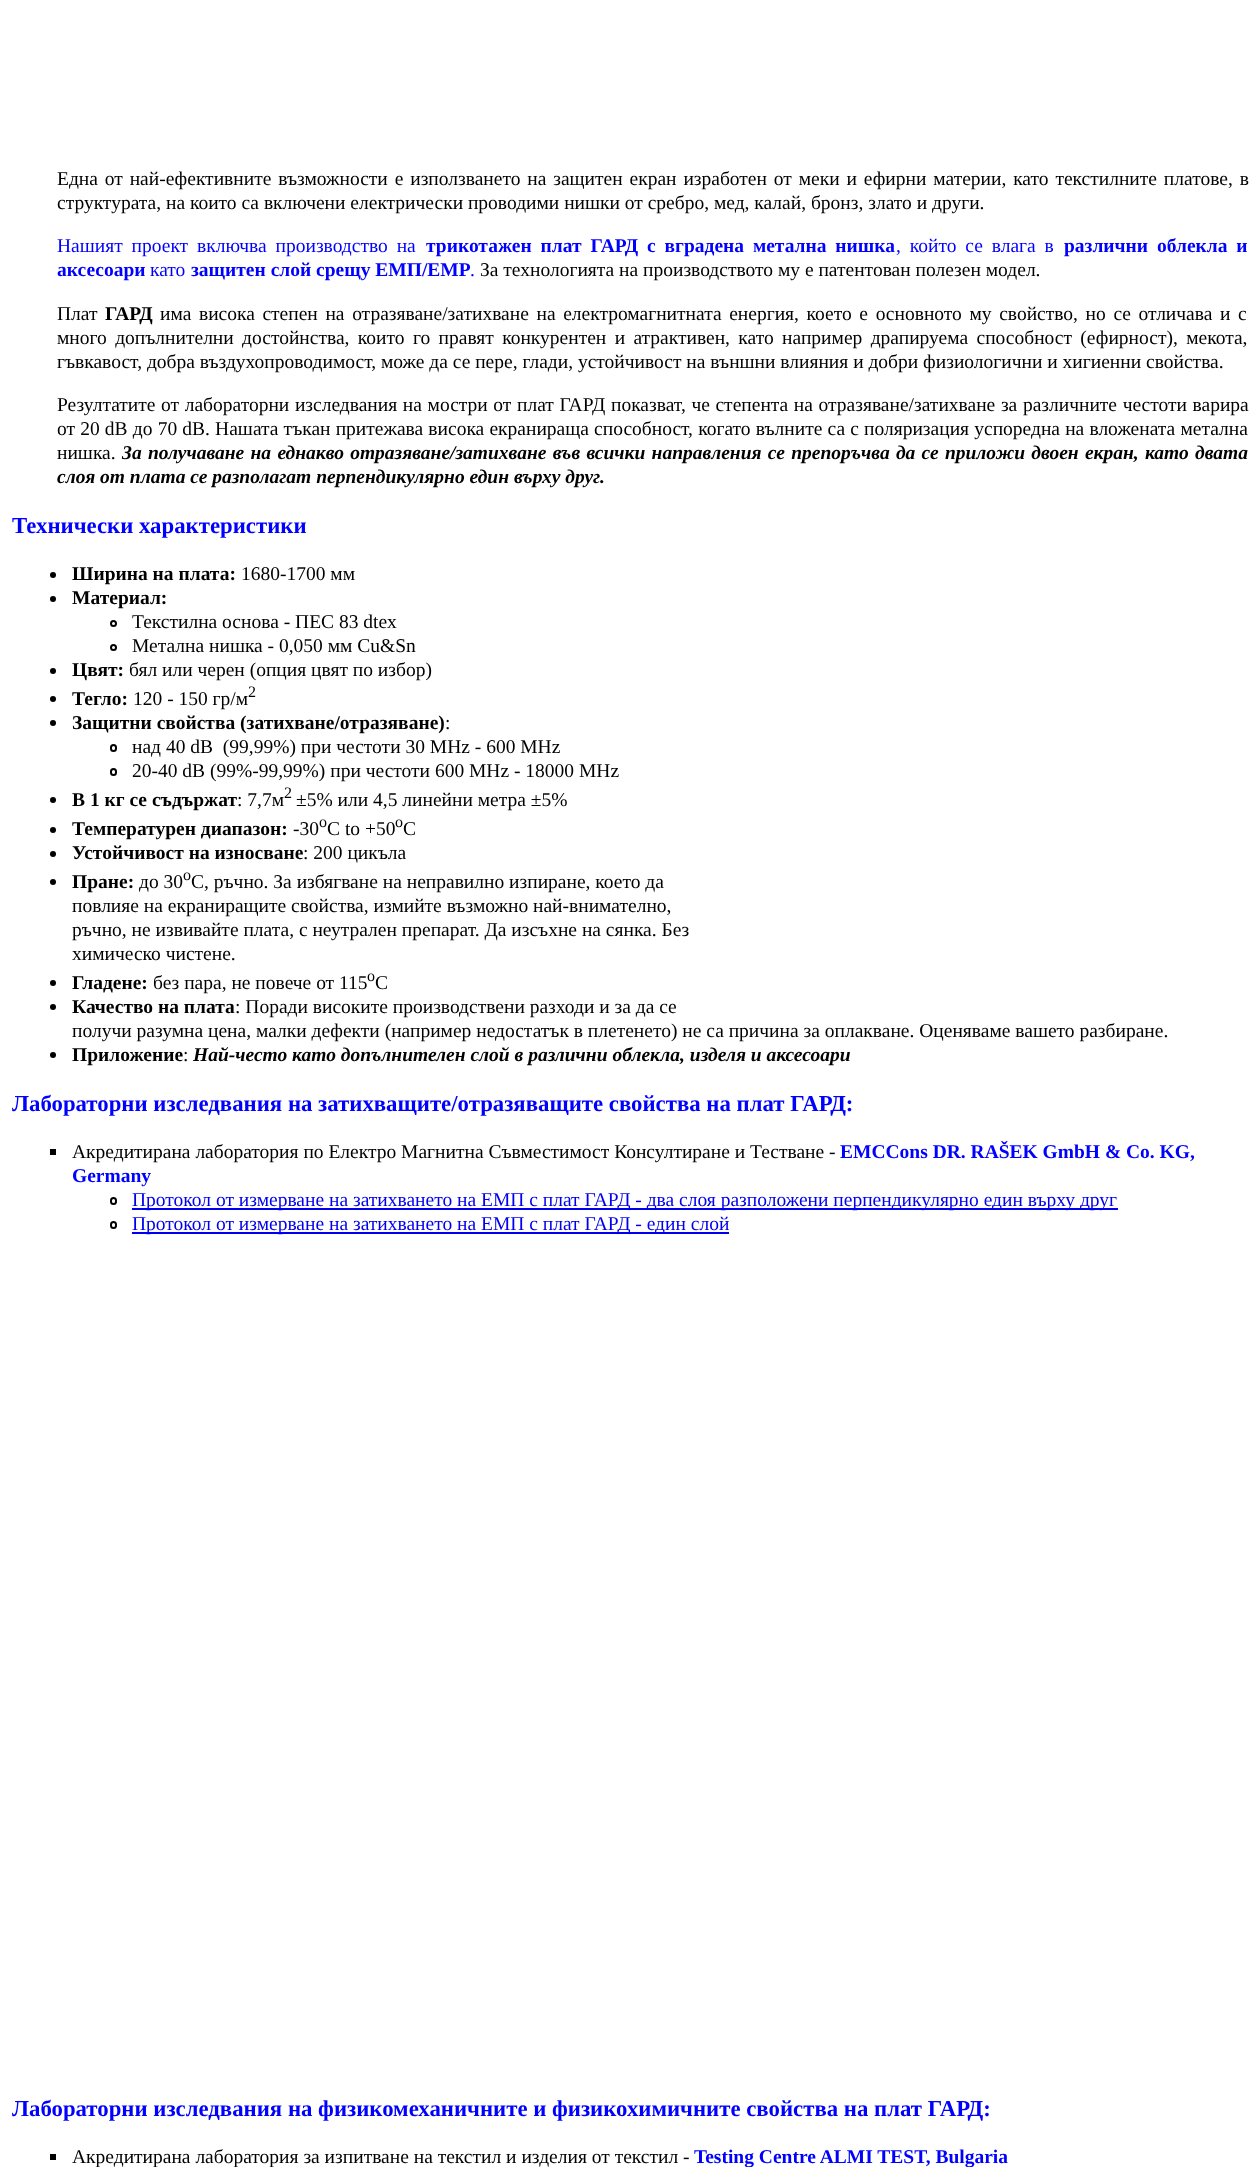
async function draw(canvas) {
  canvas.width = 1259
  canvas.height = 2167
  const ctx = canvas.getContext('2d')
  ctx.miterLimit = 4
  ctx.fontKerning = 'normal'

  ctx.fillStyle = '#fff'
  ctx.fillRect(0, 0, 1259, 2167)
  ctx.wordSpacing = '2px'
  ctx.font = '19.5px Liberation Serif'
  ctx.fillStyle = '#000'
  ctx.fillText('Една от най-ефективните възможности е използването на защитен екран изработен от меки и ефирни материи, като текстилните платове, в', 57, 185)
  ctx.wordSpacing = '0px'
  ctx.fillText('структурата, на които са включени електрически проводими нишки от сребро, мед, калай, бронз, злато и други.', 57, 209)
  ctx.wordSpacing = '4px'
  ctx.fillStyle = '#00f'
  ctx.fillText('Нашият проект включва производство на', 57, 252)
  ctx.font = 'bold 19.5px Liberation Serif'
  ctx.fillText('трикотажен пла', 426, 252)
  ctx.fillText('т ГАРД', 572, 252)
  ctx.fillText('с вградена метална нишка', 647, 252)
  ctx.font = '19.5px Liberation Serif'
  ctx.fillText(', който се влага в', 896, 252)
  ctx.font = 'bold 19.5px Liberation Serif'
  ctx.fillText('различни облекла и', 1064, 252)
  ctx.wordSpacing = '0px'
  ctx.fillText('аксесоари', 57, 276)
  ctx.font = '19.5px Liberation Serif'
  ctx.fillText('като', 150, 276)
  ctx.font = 'bold 19.5px Liberation Serif'
  ctx.fillText('защитен слой срещу ЕМП/ЕМР', 191, 276)
  ctx.font = '19.5px Liberation Serif'
  ctx.fillText('.', 470, 276)
  ctx.fillStyle = '#000'
  ctx.fillText('За технологията на производството му е патентован полезен модел.', 480, 276)
  ctx.fillText('Плат', 57, 320)
  ctx.font = 'bold 19.5px Liberation Serif'
  ctx.fillText('ГАРД', 105, 320)
  ctx.wordSpacing = '2.75px'
  ctx.font = '19.5px Liberation Serif'
  ctx.fillText('има висока степен на отразяване/затихване на електромагнитната енергия, което е основното му свойство, но се отличава и с', 160, 320)
  ctx.wordSpacing = '3.5px'
  ctx.fillText('много допълнителни достойнства, които го правят конкурентен и атрактивен, като например драпируема способност (ефирност), мекота,', 57, 344)
  ctx.wordSpacing = '0px'
  ctx.fillText('гъвкавост, добра въздухопроводимост, може да се пере, глади, устойчивост на външни влияния и добри физиологични и хигиенни свойства.', 57, 368)
  ctx.wordSpacing = '0.75px'
  ctx.fillText('Резултатите от лабораторни изследвания на мостри от плат ГАРД показват, че степента на отразяване/затихване за различните честоти варира', 57, 411)
  ctx.wordSpacing = '0.3px'
  ctx.fillText('от 20 dB до 70 dB. Нашата тъкан притежава висока екранираща способност, когато вълните са с поляризация успоредна на вложената метална', 57, 435)
  ctx.wordSpacing = '0px'
  ctx.fillText('нишка.', 57, 459)
  ctx.wordSpacing = '1.4px'
  ctx.font = 'italic bold 19.5px Liberation Serif'
  ctx.fillText('За получаване на еднакво отразяване/затихване във всички направления се препоръчва да се приложи двоен екран, като двата', 122, 459)
  ctx.wordSpacing = '0px'
  ctx.fillText('слоя от плата се разполагат перпендикулярно един върху друг.', 57, 483)
  ctx.font = 'bold 22.8px Liberation Serif'
  ctx.fillStyle = '#00f'
  ctx.fillText('Технически характеристики', 12, 533)
  ctx.fillStyle = '#000'
  ctx.beginPath()
  ctx.arc(53, 575, 3, 0, 2 * Math.PI)
  ctx.fill()
  ctx.font = 'bold 19.5px Liberation Serif'
  ctx.fillText('Ширина на плата:', 72, 580)
  ctx.font = '19.5px Liberation Serif'
  ctx.fillText('1680-1700 мм', 241, 580)
  ctx.beginPath()
  ctx.arc(53, 599, 3, 0, 2 * Math.PI)
  ctx.fill()
  ctx.font = 'bold 19.5px Liberation Serif'
  ctx.fillText('Материал:', 72, 604)
  ctx.beginPath()
  ctx.arc(113.5, 623.5, 2.5, 0, 2 * Math.PI)
  ctx.strokeStyle = '#000'
  ctx.lineWidth = 2
  ctx.stroke()
  ctx.font = '19.5px Liberation Serif'
  ctx.fillText('Текстилна основа - ПЕС 83 dtex', 132, 628)
  ctx.beginPath()
  ctx.arc(113.5, 647.5, 2.5, 0, 2 * Math.PI)
  ctx.stroke()
  ctx.fillText('Метална нишка - 0,050 мм Cu&Sn', 132, 652)
  ctx.beginPath()
  ctx.arc(53, 671, 3, 0, 2 * Math.PI)
  ctx.fill()
  ctx.font = 'bold 19.5px Liberation Serif'
  ctx.fillText('Цвят:', 72, 676)
  ctx.font = '19.5px Liberation Serif'
  ctx.fillText('бял или черен (опция цвят по избор)', 129, 676)
  ctx.beginPath()
  ctx.arc(53, 699, 3, 0, 2 * Math.PI)
  ctx.fill()
  ctx.font = 'bold 19.5px Liberation Serif'
  ctx.fillText('Тегло:', 72, 705)
  ctx.font = '19.5px Liberation Serif'
  ctx.fillText('120 - 150 гр/м', 133, 705)
  ctx.font = '16px Liberation Serif'
  ctx.fillText('2', 248, 697)
  ctx.beginPath()
  ctx.arc(53, 723, 3, 0, 2 * Math.PI)
  ctx.fill()
  ctx.font = 'bold 19.5px Liberation Serif'
  ctx.fillText('Защитни свойства (затихване/отразяване)', 72, 729)
  ctx.font = '19.5px Liberation Serif'
  ctx.fillText(':', 445, 729)
  ctx.beginPath()
  ctx.roundRect(111, 745, 5, 6, 2.5)
  ctx.stroke()
  ctx.fillText('над 40 dB  (99,99%) при честоти 30 MHz - 600 MHz', 132, 753)
  ctx.beginPath()
  ctx.roundRect(111, 769, 5, 6, 2.5)
  ctx.stroke()
  ctx.fillText('20-40 dB (99%-99,99%) при честоти 600 MHz - 18000 MHz', 132, 777)
  ctx.beginPath()
  ctx.arc(53, 800, 3, 0, 2 * Math.PI)
  ctx.fill()
  ctx.font = 'bold 19.5px Liberation Serif'
  ctx.fillText('В 1 кг се съдържат', 72, 806)
  ctx.font = '19.5px Liberation Serif'
  ctx.fillText(': 7,7м', 237, 806)
  ctx.font = '16px Liberation Serif'
  ctx.fillText('2', 284, 798)
  ctx.font = '19.5px Liberation Serif'
  ctx.fillText('±5% или 4,5 линейни метра ±5%', 296, 806)
  ctx.beginPath()
  ctx.arc(53, 830, 3, 0, 2 * Math.PI)
  ctx.fill()
  ctx.font = 'bold 19.5px Liberation Serif'
  ctx.fillText('Температурен диапазон:', 72, 835)
  ctx.font = '19.5px Liberation Serif'
  ctx.fillText('-30', 293, 835)
  ctx.font = '16px Liberation Serif'
  ctx.fillText('o', 319, 827)
  ctx.font = '19.5px Liberation Serif'
  ctx.fillText('C to +50', 327, 835)
  ctx.font = '16px Liberation Serif'
  ctx.fillText('o', 395, 827)
  ctx.font = '19.5px Liberation Serif'
  ctx.fillText('C', 403, 835)
  ctx.beginPath()
  ctx.arc(53, 854, 3, 0, 2 * Math.PI)
  ctx.fill()
  ctx.font = 'bold 19.5px Liberation Serif'
  ctx.fillText('Устойчивост на износване', 72, 859)
  ctx.font = '19.5px Liberation Serif'
  ctx.fillText(': 200 цикъла', 303, 859)
  ctx.beginPath()
  ctx.arc(53, 882, 3, 0, 2 * Math.PI)
  ctx.fill()
  ctx.font = 'bold 19.5px Liberation Serif'
  ctx.fillText('Пране:', 72, 888)
  ctx.font = '19.5px Liberation Serif'
  ctx.fillText('до 30', 139, 888)
  ctx.font = '16px Liberation Serif'
  ctx.fillText('o', 183, 880)
  ctx.font = '19.5px Liberation Serif'
  ctx.fillText('C, ръчно. За избягване на неправилно изпиране, което да', 191, 888)
  ctx.fillText('повлияе на екраниращите свойства, измийте възможно най-внимателно,', 72, 912)
  ctx.fillText('ръчно, не извивайте плата, с неутрален препарат. Да изсъхне на сянка. Без', 72, 936)
  ctx.fillText('химическо чистене.', 72, 960)
  ctx.beginPath()
  ctx.arc(53, 983, 3, 0, 2 * Math.PI)
  ctx.fill()
  ctx.font = 'bold 19.5px Liberation Serif'
  ctx.fillText('Гладене:', 72, 989)
  ctx.font = '19.5px Liberation Serif'
  ctx.fillText('без пара, не повече от 115', 153, 989)
  ctx.font = '16px Liberation Serif'
  ctx.fillText('o', 367, 981)
  ctx.font = '19.5px Liberation Serif'
  ctx.fillText('C', 375, 989)
  ctx.beginPath()
  ctx.arc(53, 1007, 3, 0, 2 * Math.PI)
  ctx.fill()
  ctx.font = 'bold 19.5px Liberation Serif'
  ctx.fillText('Качество на плата', 72, 1013)
  ctx.font = '19.5px Liberation Serif'
  ctx.fillText(': Поради високите производствени разходи и за да се', 235, 1013)
  ctx.fillText('получи разумна цена, малки дефекти (например недостатък в плетенето) не са причина за оплакване. Оценяваме вашето разбиране.', 72, 1037)
  ctx.beginPath()
  ctx.arc(53, 1055, 3, 0, 2 * Math.PI)
  ctx.fill()
  ctx.font = 'bold 19.5px Liberation Serif'
  ctx.fillText('Приложение', 72, 1061)
  ctx.font = '19.5px Liberation Serif'
  ctx.fillText(':', 183, 1061)
  ctx.font = 'italic bold 19.5px Liberation Serif'
  ctx.fillText('Най-често като допълнителен слой в различни облекла, изделя и аксесоари', 193, 1061)
  ctx.font = 'bold 22.8px Liberation Serif'
  ctx.fillStyle = '#00f'
  ctx.fillText('Лабораторни изследвания на затихващите/отразяващите свойства на плат ГАРД:', 12, 1111)
  ctx.fillStyle = '#000'
  ctx.fillRect(50, 1149, 6, 6)
  ctx.font = '19.5px Liberation Serif'
  ctx.fillText('Акредитирана лаборатория по Електро Магнитна Съвместимост Консултиране и Тестване -', 72, 1158)
  ctx.font = 'bold 19.5px Liberation Serif'
  ctx.fillStyle = '#00f'
  ctx.fillText('EMCCons DR. RAŠEK GmbH & Co. KG,', 840, 1158)
  ctx.fillText('Germany', 72, 1182)
  ctx.beginPath()
  ctx.roundRect(111, 1198, 5, 6, 2.5)
  ctx.stroke()
  ctx.fillStyle = '#00e'
  ctx.fillRect(132, 1208, 986, 2)
  ctx.font = '19.5px Liberation Serif'
  ctx.fillText('Протокол от измерване на затихването на ЕМП с плат ГАРД - два слоя разположени перпендикулярно един върху друг', 132, 1206)
  ctx.beginPath()
  ctx.roundRect(111, 1222, 5, 6, 2.5)
  ctx.stroke()
  ctx.fillRect(132, 1232, 597, 2)
  ctx.fillText('Протокол от измерване на затихването на ЕМП с плат ГАРД - един слой', 132, 1230)
  ctx.font = 'bold 22.8px Liberation Serif'
  ctx.fillStyle = '#00f'
  ctx.fillText('Лабораторни изследвания на физикомеханичните и физикохимичните свойства на плат ГАРД:', 12, 2116)
  ctx.fillStyle = '#000'
  ctx.fillRect(50, 2154, 6, 6)
  ctx.font = '19.5px Liberation Serif'
  ctx.fillText('Акредитирана лаборатория за изпитване на текстил и изделия от текстил -', 72, 2163)
  ctx.font = 'bold 19.5px Liberation Serif'
  ctx.fillStyle = '#00f'
  ctx.fillText('Testing Centre ALMI TEST, Bulgaria', 694, 2163)
}

draw(document.querySelector('canvas'))
